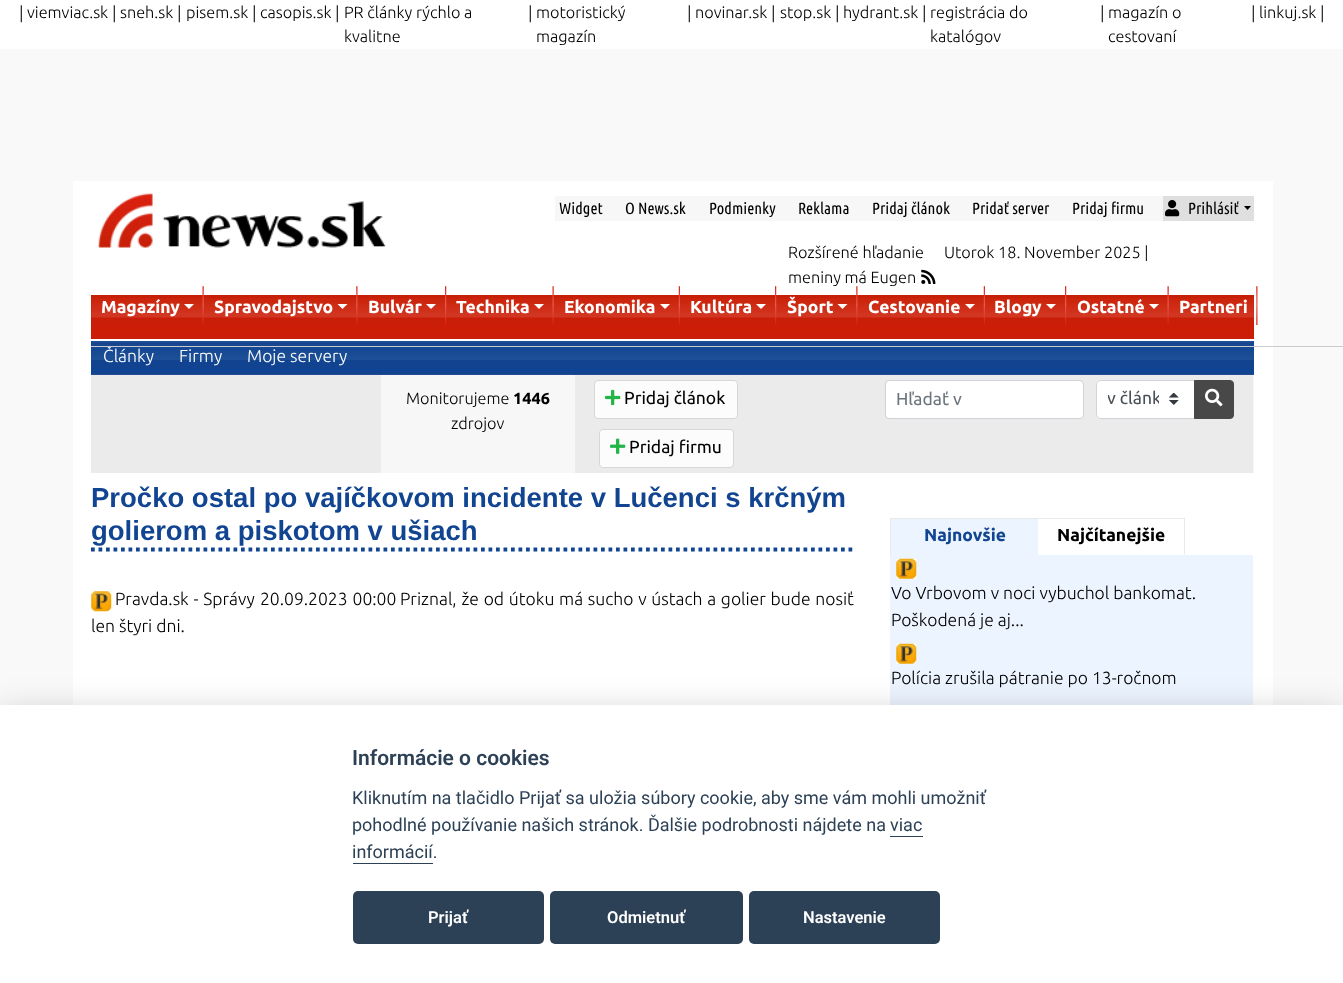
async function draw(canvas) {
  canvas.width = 1343
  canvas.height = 983
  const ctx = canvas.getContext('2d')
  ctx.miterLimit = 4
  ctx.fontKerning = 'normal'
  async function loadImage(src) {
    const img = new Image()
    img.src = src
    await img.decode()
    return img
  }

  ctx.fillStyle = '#f9f9f9'
  ctx.fillRect(0, 0, 1343, 983)
  ctx.fillStyle = '#fff'
  ctx.fillRect(0, 0, 1343, 49)
  ctx.font = '300 17.5px Ubuntu'
  ctx.fillStyle = '#000'
  ctx.fillText('|', 19, 19)
  ctx.font = '300 16.25px Ubuntu'
  ctx.fillText('viemviac.sk', 27, 18)
  ctx.font = '300 17.5px Ubuntu'
  ctx.fillText('|', 112, 19)
  ctx.font = '300 16.25px Ubuntu'
  ctx.fillText('sneh.sk', 120, 18)
  ctx.font = '300 17.5px Ubuntu'
  ctx.fillText('|', 177, 19)
  ctx.font = '300 16.25px Ubuntu'
  ctx.fillText('pisem.sk', 186, 18)
  ctx.font = '300 17.5px Ubuntu'
  ctx.fillText('|', 252, 19)
  ctx.font = '300 16.25px Ubuntu'
  ctx.fillText('casopis.sk', 260, 18)
  ctx.font = '300 17.5px Ubuntu'
  ctx.fillText('|', 335, 19)
  ctx.font = '300 16.25px Ubuntu'
  ctx.fillText('PR články rýchlo a', 344, 18)
  ctx.fillText('kvalitne', 344, 42)
  ctx.font = '300 17.5px Ubuntu'
  ctx.fillText('|', 528, 19)
  ctx.font = '300 16.25px Ubuntu'
  ctx.fillText('motoristický', 536, 18)
  ctx.fillText('magazín', 536, 42)
  ctx.font = '300 17.5px Ubuntu'
  ctx.fillText('|', 687, 19)
  ctx.font = '300 16.25px Ubuntu'
  ctx.fillText('novinar.sk', 695, 18)
  ctx.font = '300 17.5px Ubuntu'
  ctx.fillText('|', 771, 19)
  ctx.font = '300 16.25px Ubuntu'
  ctx.fillText('stop.sk', 780, 18)
  ctx.font = '300 17.5px Ubuntu'
  ctx.fillText('|', 835, 19)
  ctx.font = '300 16.25px Ubuntu'
  ctx.fillText('hydrant.sk', 843, 18)
  ctx.font = '300 17.5px Ubuntu'
  ctx.fillText('|', 922, 19)
  ctx.font = '300 16.25px Ubuntu'
  ctx.fillText('registrácia do', 930, 18)
  ctx.fillText('katalógov', 930, 42)
  ctx.font = '300 17.5px Ubuntu'
  ctx.fillText('|', 1100, 19)
  ctx.font = '300 16.25px Ubuntu'
  ctx.fillText('magazín o', 1108, 18)
  ctx.fillText('cestovaní', 1108, 42)
  ctx.font = '300 17.5px Ubuntu'
  ctx.fillText('|', 1251, 19)
  ctx.font = '300 16.25px Ubuntu'
  ctx.fillText('linkuj.sk', 1259, 18)
  ctx.font = '300 17.5px Ubuntu'
  ctx.fillText('|', 1320, 19)
  ctx.fillStyle = '#fff'
  ctx.fillRect(73, 181, 1200, 524)
  ctx.drawImage(await loadImage('image0.png'), 98, 193, 288, 55)
  ctx.fillStyle = '#f7f7f7'
  ctx.fillRect(555, 196, 608, 25)
  ctx.font = '16.25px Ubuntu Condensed'
  ctx.fillStyle = '#000'
  ctx.fillText('Widget', 559, 214)
  ctx.fillText('O News.sk', 625, 214)
  ctx.fillText('Podmienky', 709, 214)
  ctx.fillText('Reklama', 798, 214)
  ctx.fillText('Pridaj článok', 872, 214)
  ctx.fillText('Pridať server', 972, 214)
  ctx.fillText('Pridaj firmu', 1072, 214)
  ctx.fillStyle = '#dfdfdf'
  ctx.fillRect(1163, 196, 91, 25)
  ctx.drawImage(await loadImage('image1.png'), 1165, 200, 15, 17)
  ctx.fillStyle = '#000'
  ctx.fillText('Prihlásiť', 1188, 214)
  ctx.beginPath()
  ctx.moveTo(1244, 206)
  ctx.lineTo(1251, 206)
  ctx.lineTo(1247.5, 210)
  ctx.closePath()
  ctx.fill()
  ctx.font = '300 16.25px Ubuntu'
  ctx.fillText('Rozšírené hľadanie', 788, 258)
  ctx.fillText('Utorok 18. November 2025 |', 944, 258)
  ctx.fillText('meniny má Eugen', 788, 283)
  ctx.drawImage(await loadImage('image2.png'), 921, 269, 15, 15)
  ctx.fillStyle = '#c72008'
  ctx.fillRect(91, 295, 1163, 44)
  ctx.drawImage(await loadImage('image3.png'), 91, 298, 1163, 40)
  ctx.fillStyle = '#154892'
  ctx.fillRect(91, 341, 1163, 34)
  ctx.drawImage(await loadImage('image9.png'), 91, 341, 1163, 34)
  ctx.font = '300 17.5px Ubuntu'
  ctx.fillStyle = '#fff'
  ctx.fillText('Články', 103, 362)
  ctx.fillStyle = '#cccacb'
  ctx.fillRect(91, 346, 1078, 1)
  ctx.drawImage(await loadImage('image4.png'), 202, 286, 2, 39)
  ctx.font = 'bold 17.5px Ubuntu'
  ctx.fillStyle = '#fff'
  ctx.fillText('Magazíny', 101, 313)
  ctx.beginPath()
  ctx.moveTo(184, 304)
  ctx.lineTo(194, 304)
  ctx.lineTo(189, 309)
  ctx.closePath()
  ctx.fill()
  ctx.drawImage(await loadImage('image5.png'), 356, 286, 2, 39)
  ctx.fillText('Spravodajstvo', 214, 313)
  ctx.beginPath()
  ctx.moveTo(337.5, 304)
  ctx.lineTo(347.5, 304)
  ctx.lineTo(342.5, 309)
  ctx.closePath()
  ctx.fill()
  ctx.drawImage(await loadImage('image6.png'), 445, 286, 2, 39)
  ctx.fillText('Bulvár', 368, 313)
  ctx.beginPath()
  ctx.moveTo(426, 304)
  ctx.lineTo(436, 304)
  ctx.lineTo(431, 309)
  ctx.closePath()
  ctx.fill()
  ctx.drawImage(await loadImage('image4.png'), 552, 286, 2, 39)
  ctx.fillText('Technika', 456, 313)
  ctx.beginPath()
  ctx.moveTo(534, 304)
  ctx.lineTo(544, 304)
  ctx.lineTo(539, 309)
  ctx.closePath()
  ctx.fill()
  ctx.drawImage(await loadImage('image7.png'), 678, 286, 2, 39)
  ctx.fillText('Ekonomika', 564, 313)
  ctx.beginPath()
  ctx.moveTo(660, 304)
  ctx.lineTo(670, 304)
  ctx.lineTo(665, 309)
  ctx.closePath()
  ctx.fill()
  ctx.drawImage(await loadImage('image6.png'), 775, 286, 2, 39)
  ctx.fillText('Kultúra', 690, 313)
  ctx.beginPath()
  ctx.moveTo(756, 304)
  ctx.lineTo(766, 304)
  ctx.lineTo(761, 309)
  ctx.closePath()
  ctx.fill()
  ctx.drawImage(await loadImage('image5.png'), 856, 286, 2, 39)
  ctx.fillText('Šport', 787, 313)
  ctx.beginPath()
  ctx.moveTo(837.5, 304)
  ctx.lineTo(847.5, 304)
  ctx.lineTo(842.5, 309)
  ctx.closePath()
  ctx.fill()
  ctx.drawImage(await loadImage('image7.png'), 983, 286, 2, 39)
  ctx.fillText('Cestovanie', 868, 313)
  ctx.beginPath()
  ctx.moveTo(965, 304)
  ctx.lineTo(975, 304)
  ctx.lineTo(970, 309)
  ctx.closePath()
  ctx.fill()
  ctx.drawImage(await loadImage('image6.png'), 1065, 286, 2, 39)
  ctx.fillText('Blogy', 994, 313)
  ctx.beginPath()
  ctx.moveTo(1046, 304)
  ctx.lineTo(1056, 304)
  ctx.lineTo(1051, 309)
  ctx.closePath()
  ctx.fill()
  ctx.drawImage(await loadImage('image4.png'), 1167, 286, 2, 39)
  ctx.fillText('Ostatné', 1077, 313)
  ctx.beginPath()
  ctx.moveTo(1149, 304)
  ctx.lineTo(1159, 304)
  ctx.lineTo(1154, 309)
  ctx.closePath()
  ctx.fill()
  ctx.fillStyle = '#cccacb'
  ctx.fillRect(1169, 346, 174, 1)
  ctx.drawImage(await loadImage('image8.png'), 1256, 286, 2, 39)
  ctx.fillStyle = '#fff'
  ctx.fillText('Partneri', 1179, 313)
  ctx.font = '300 17.5px Ubuntu'
  ctx.fillText('Firmy', 179, 362)
  ctx.fillText('Moje servery', 247, 362)
  ctx.fillStyle = '#f7f7f7'
  ctx.fillRect(381, 375, 873, 98)
  ctx.fillStyle = '#ebebeb'
  ctx.fillRect(91, 375, 290, 98)
  ctx.font = '300 16.25px Ubuntu'
  ctx.fillStyle = '#000'
  ctx.fillText('Monitorujeme', 406, 404)
  ctx.font = 'bold 16.25px Ubuntu'
  ctx.fillText('1446', 513, 404)
  ctx.font = '300 16.25px Ubuntu'
  ctx.fillText('zdrojov', 451, 429)
  ctx.fillStyle = '#ebebeb'
  ctx.fillRect(575, 375, 678, 98)
  ctx.fillStyle = '#fdfcfc'
  ctx.beginPath()
  ctx.roundRect(594.5, 380.5, 143, 38, 3.5)
  ctx.fill()
  ctx.strokeStyle = '#d7d7d7'
  ctx.stroke()
  ctx.drawImage(await loadImage('image10.png'), 605, 389, 16, 17)
  ctx.font = '17.5px Ubuntu'
  ctx.fillStyle = '#000'
  ctx.fillText('Pridaj článok', 624, 404)
  ctx.fillStyle = '#fdfcfc'
  ctx.beginPath()
  ctx.roundRect(599.5, 429.5, 134, 38, 3.5)
  ctx.fill()
  ctx.stroke()
  ctx.drawImage(await loadImage('image11.png'), 610, 438, 16, 16)
  ctx.fillStyle = '#000'
  ctx.fillText('Pridaj firmu', 629, 453)
  ctx.fillStyle = '#fff'
  ctx.beginPath()
  ctx.roundRect(886, 381, 197, 37, 2.5)
  ctx.fill()
  ctx.beginPath()
  ctx.roundRect(885.5, 380.5, 198, 38, 3.5)
  ctx.strokeStyle = '#ced4da'
  ctx.stroke()
  ctx.fillStyle = '#6c757d'
  ctx.fillText('Hľadať v', 896, 405)
  ctx.fillStyle = '#fff'
  ctx.beginPath()
  ctx.roundRect(1096, 380, 99, 39, [5, 0, 0, 5])
  ctx.fill()
  ctx.drawImage(await loadImage('image12.png'), 1169, 393, 10, 12)
  ctx.beginPath()
  ctx.roundRect(1096.5, 380.5, 98, 38, [4.5, 0, 0, 4.5])
  ctx.stroke()
  ctx.save()
  ctx.beginPath()
  ctx.rect(1108, 386, 51, 27)
  ctx.clip()
  ctx.fillStyle = '#495057'
  ctx.fillText('v článk', 1107, 404)
  ctx.restore()
  ctx.fillStyle = '#474847'
  ctx.beginPath()
  ctx.roundRect(1194.5, 380.5, 39, 38, [0, 3.5, 3.5, 0])
  ctx.fill()
  ctx.strokeStyle = '#474847'
  ctx.stroke()
  ctx.drawImage(await loadImage('image13.png'), 1205, 388, 18, 19)
  ctx.beginPath()
  ctx.moveTo(91, 549.5)
  ctx.lineTo(852.5, 549.5)
  ctx.strokeStyle = '#114591'
  ctx.lineWidth = 3.8
  ctx.setLineDash([3.75, 3.75])
  ctx.stroke()
  ctx.font = 'bold 27.5px Liberation Sans'
  ctx.fillStyle = '#114591'
  ctx.fillText('Pročko ostal po vajíčkovom incidente v Lučenci s krčným', 91, 507)
  ctx.fillText('golierom a piskotom v ušiach', 91, 540)
  ctx.drawImage(await loadImage('image14.png'), 91, 591, 21, 21)
  ctx.wordSpacing = '0.75px'
  ctx.font = '300 17.5px Ubuntu'
  ctx.fillStyle = '#000'
  ctx.fillText('Pravda.sk - Správy', 115, 605)
  ctx.wordSpacing = '1px'
  ctx.fillText('20.09.2023 00:00', 260, 605)
  ctx.wordSpacing = '0.75px'
  ctx.fillText('Priznal, že od útoku má sucho v ústach a golier bude nosiť', 400, 605)
  ctx.wordSpacing = '0px'
  ctx.fillText('len štyri dni.', 91, 632)
  ctx.fillStyle = '#ecf4ff'
  ctx.fillRect(891, 519, 147, 36)
  ctx.fillStyle = '#e9e9e9'
  ctx.fillRect(890, 518, 295, 1)
  ctx.fillRect(890, 518, 1, 37)
  ctx.font = 'bold 17.5px Ubuntu'
  ctx.fillStyle = '#114591'
  ctx.fillText('Najnovšie', 924, 541)
  ctx.fillStyle = '#e9e9e9'
  ctx.fillRect(1184, 518, 1, 36)
  ctx.fillStyle = '#000'
  ctx.fillText('Najčítanejšie', 1057, 541)
  ctx.fillStyle = '#ecf4ff'
  ctx.fillRect(890, 555, 363, 150)
  ctx.drawImage(await loadImage('image15.png'), 896, 558, 21, 21)
  ctx.font = '300 17.5px Ubuntu'
  ctx.fillStyle = '#000'
  ctx.fillText('Vo Vrbovom v noci vybuchol bankomat.', 891, 599)
  ctx.fillText('Poškodená je aj...', 891, 626)
  ctx.drawImage(await loadImage('image15.png'), 896, 643, 21, 21)
  ctx.fillText('Polícia zrušila pátranie po 13-ročnom', 891, 684)
  ctx.fillStyle = '#02020347'
  ctx.filter = 'blur(19px)'
  ctx.beginPath()
  ctx.rect(0, 718, 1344, 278)
  ctx.fill()
  ctx.filter = 'none'
  ctx.fillStyle = '#fff'
  ctx.fillRect(0, 705, 1343, 278)
  ctx.font = '600 21px Roboto'
  ctx.fillStyle = '#2d4156'
  ctx.fillText('Informácie o cookies', 352, 765)
  ctx.font = '18px Roboto'
  ctx.fillText('Kliknutím na tlačidlo Prijať sa uložia súbory cookie, aby sme vám mohli umožniť', 352, 804)
  ctx.fillText('pohodlné používanie našich stránok. Ďalšie podrobnosti nájdete na', 352, 831)
  ctx.fillText('viac', 890, 831)
  ctx.fillRect(890, 836, 33, 1)
  ctx.fillText('informácií.', 352, 858)
  ctx.fillRect(353, 863, 80, 1)
  ctx.beginPath()
  ctx.roundRect(353, 891, 191, 53, 5)
  ctx.fill()
  ctx.font = '600 16.5px Roboto'
  ctx.fillStyle = '#fff'
  ctx.fillText('Prijať', 428, 923)
  ctx.fillStyle = '#2d4156'
  ctx.beginPath()
  ctx.roundRect(550, 891, 193, 53, 5)
  ctx.fill()
  ctx.fillStyle = '#fff'
  ctx.fillText('Odmietnuť', 607, 923)
  ctx.fillStyle = '#2d4156'
  ctx.beginPath()
  ctx.roundRect(749, 891, 191, 53, 5)
  ctx.fill()
  ctx.fillStyle = '#fff'
  ctx.fillText('Nastavenie', 803, 923)
}

draw(document.querySelector('canvas'))
